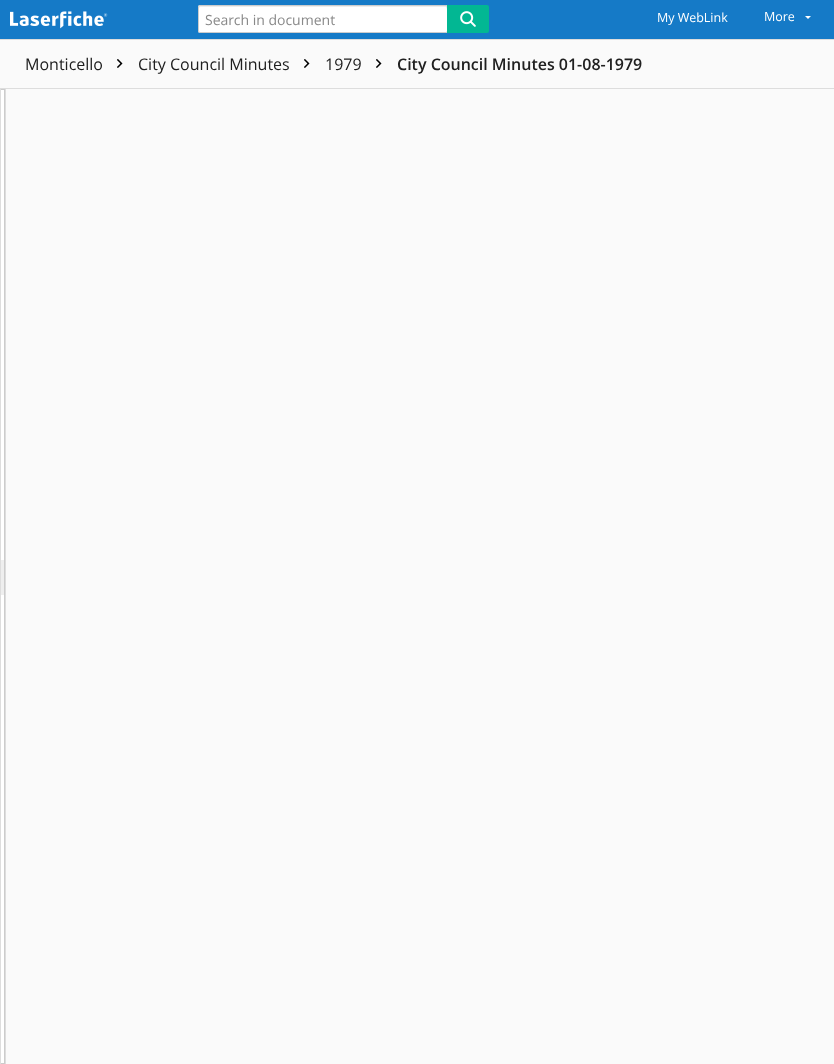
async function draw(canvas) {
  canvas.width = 834
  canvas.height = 1064
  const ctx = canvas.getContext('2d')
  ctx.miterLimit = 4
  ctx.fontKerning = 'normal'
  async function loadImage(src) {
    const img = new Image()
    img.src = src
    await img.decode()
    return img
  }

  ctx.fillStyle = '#fff'
  ctx.fillRect(0, 0, 834, 1064)
  ctx.fillStyle = '#157ac7'
  ctx.fillRect(0, 0, 834, 39)
  ctx.fillStyle = '#ddd'
  ctx.fillRect(0, 39, 834, 1)
  ctx.drawImage(await loadImage('image0.png'), 10, 11, 98, 18)
  ctx.fillStyle = '#fff'
  ctx.beginPath()
  ctx.roundRect(198, 5, 250, 28, 2)
  ctx.fill()
  ctx.fillStyle = '#ececec'
  ctx.beginPath()
  ctx.moveTo(200, 7)
  ctx.lineTo(446, 7)
  ctx.lineTo(447, 9)
  ctx.lineTo(447, 7)
  ctx.bezierCurveTo(447, 6, 447, 6, 446, 6)
  ctx.lineTo(200, 6)
  ctx.bezierCurveTo(199, 6, 199, 6, 199, 7)
  ctx.lineTo(199, 8)
  ctx.closePath()
  ctx.fill()
  ctx.beginPath()
  ctx.roundRect(198.5, 5.5, 249, 27, 1.5)
  ctx.strokeStyle = '#ccc'
  ctx.stroke()
  ctx.font = '14px Open Sans'
  ctx.fillStyle = '#898989'
  ctx.fillText('Search in document', 205, 25)
  ctx.fillStyle = '#02b793'
  ctx.beginPath()
  ctx.roundRect(447, 5, 42, 28, [0, 2, 2, 0])
  ctx.fill()
  ctx.drawImage(await loadImage('image1.png'), 460, 11, 16, 16)
  ctx.font = '12.5px Open Sans'
  ctx.fillStyle = '#fff'
  ctx.fillText('My WebLink', 657, 22)
  ctx.fillText('More', 764, 21)
  ctx.beginPath()
  ctx.moveTo(805, 16)
  ctx.lineTo(811, 16)
  ctx.lineTo(808, 19)
  ctx.closePath()
  ctx.fill()
  ctx.fillStyle = '#fafafa'
  ctx.fillRect(0, 40, 834, 48)
  ctx.fillStyle = '#ddd'
  ctx.fillRect(0, 88, 834, 1)
  ctx.font = '16px Open Sans'
  ctx.fillStyle = '#202020'
  ctx.fillText('Monticello', 25, 70)
  ctx.drawImage(await loadImage('image2.png'), 117, 59, 6, 9)
  ctx.fillText('City Council Minutes', 138, 70)
  ctx.drawImage(await loadImage('image2.png'), 304, 59, 6, 9)
  ctx.fillText('1979', 325, 70)
  ctx.drawImage(await loadImage('image2.png'), 376, 59, 6, 9)
  ctx.font = '600 16px Open Sans'
  ctx.fillText('City Council Minutes 01-08-1979', 397, 70)
  ctx.fillStyle = '#ccc'
  ctx.fillRect(0, 89, 5, 1)
  ctx.fillRect(4, 89, 1, 975)
  ctx.fillRect(0, 1063, 5, 1)
  ctx.fillStyle = '#ddd'
  ctx.fillRect(0, 89, 1, 975)
  ctx.fillStyle = '#eee'
  ctx.fillRect(1, 560, 3, 35)
  ctx.fillStyle = '#ddd'
  ctx.fillRect(5, 89, 1, 975)
  ctx.fillStyle = '#fafafa'
  ctx.fillRect(6, 89, 828, 975)
}

draw(document.querySelector('canvas'))
